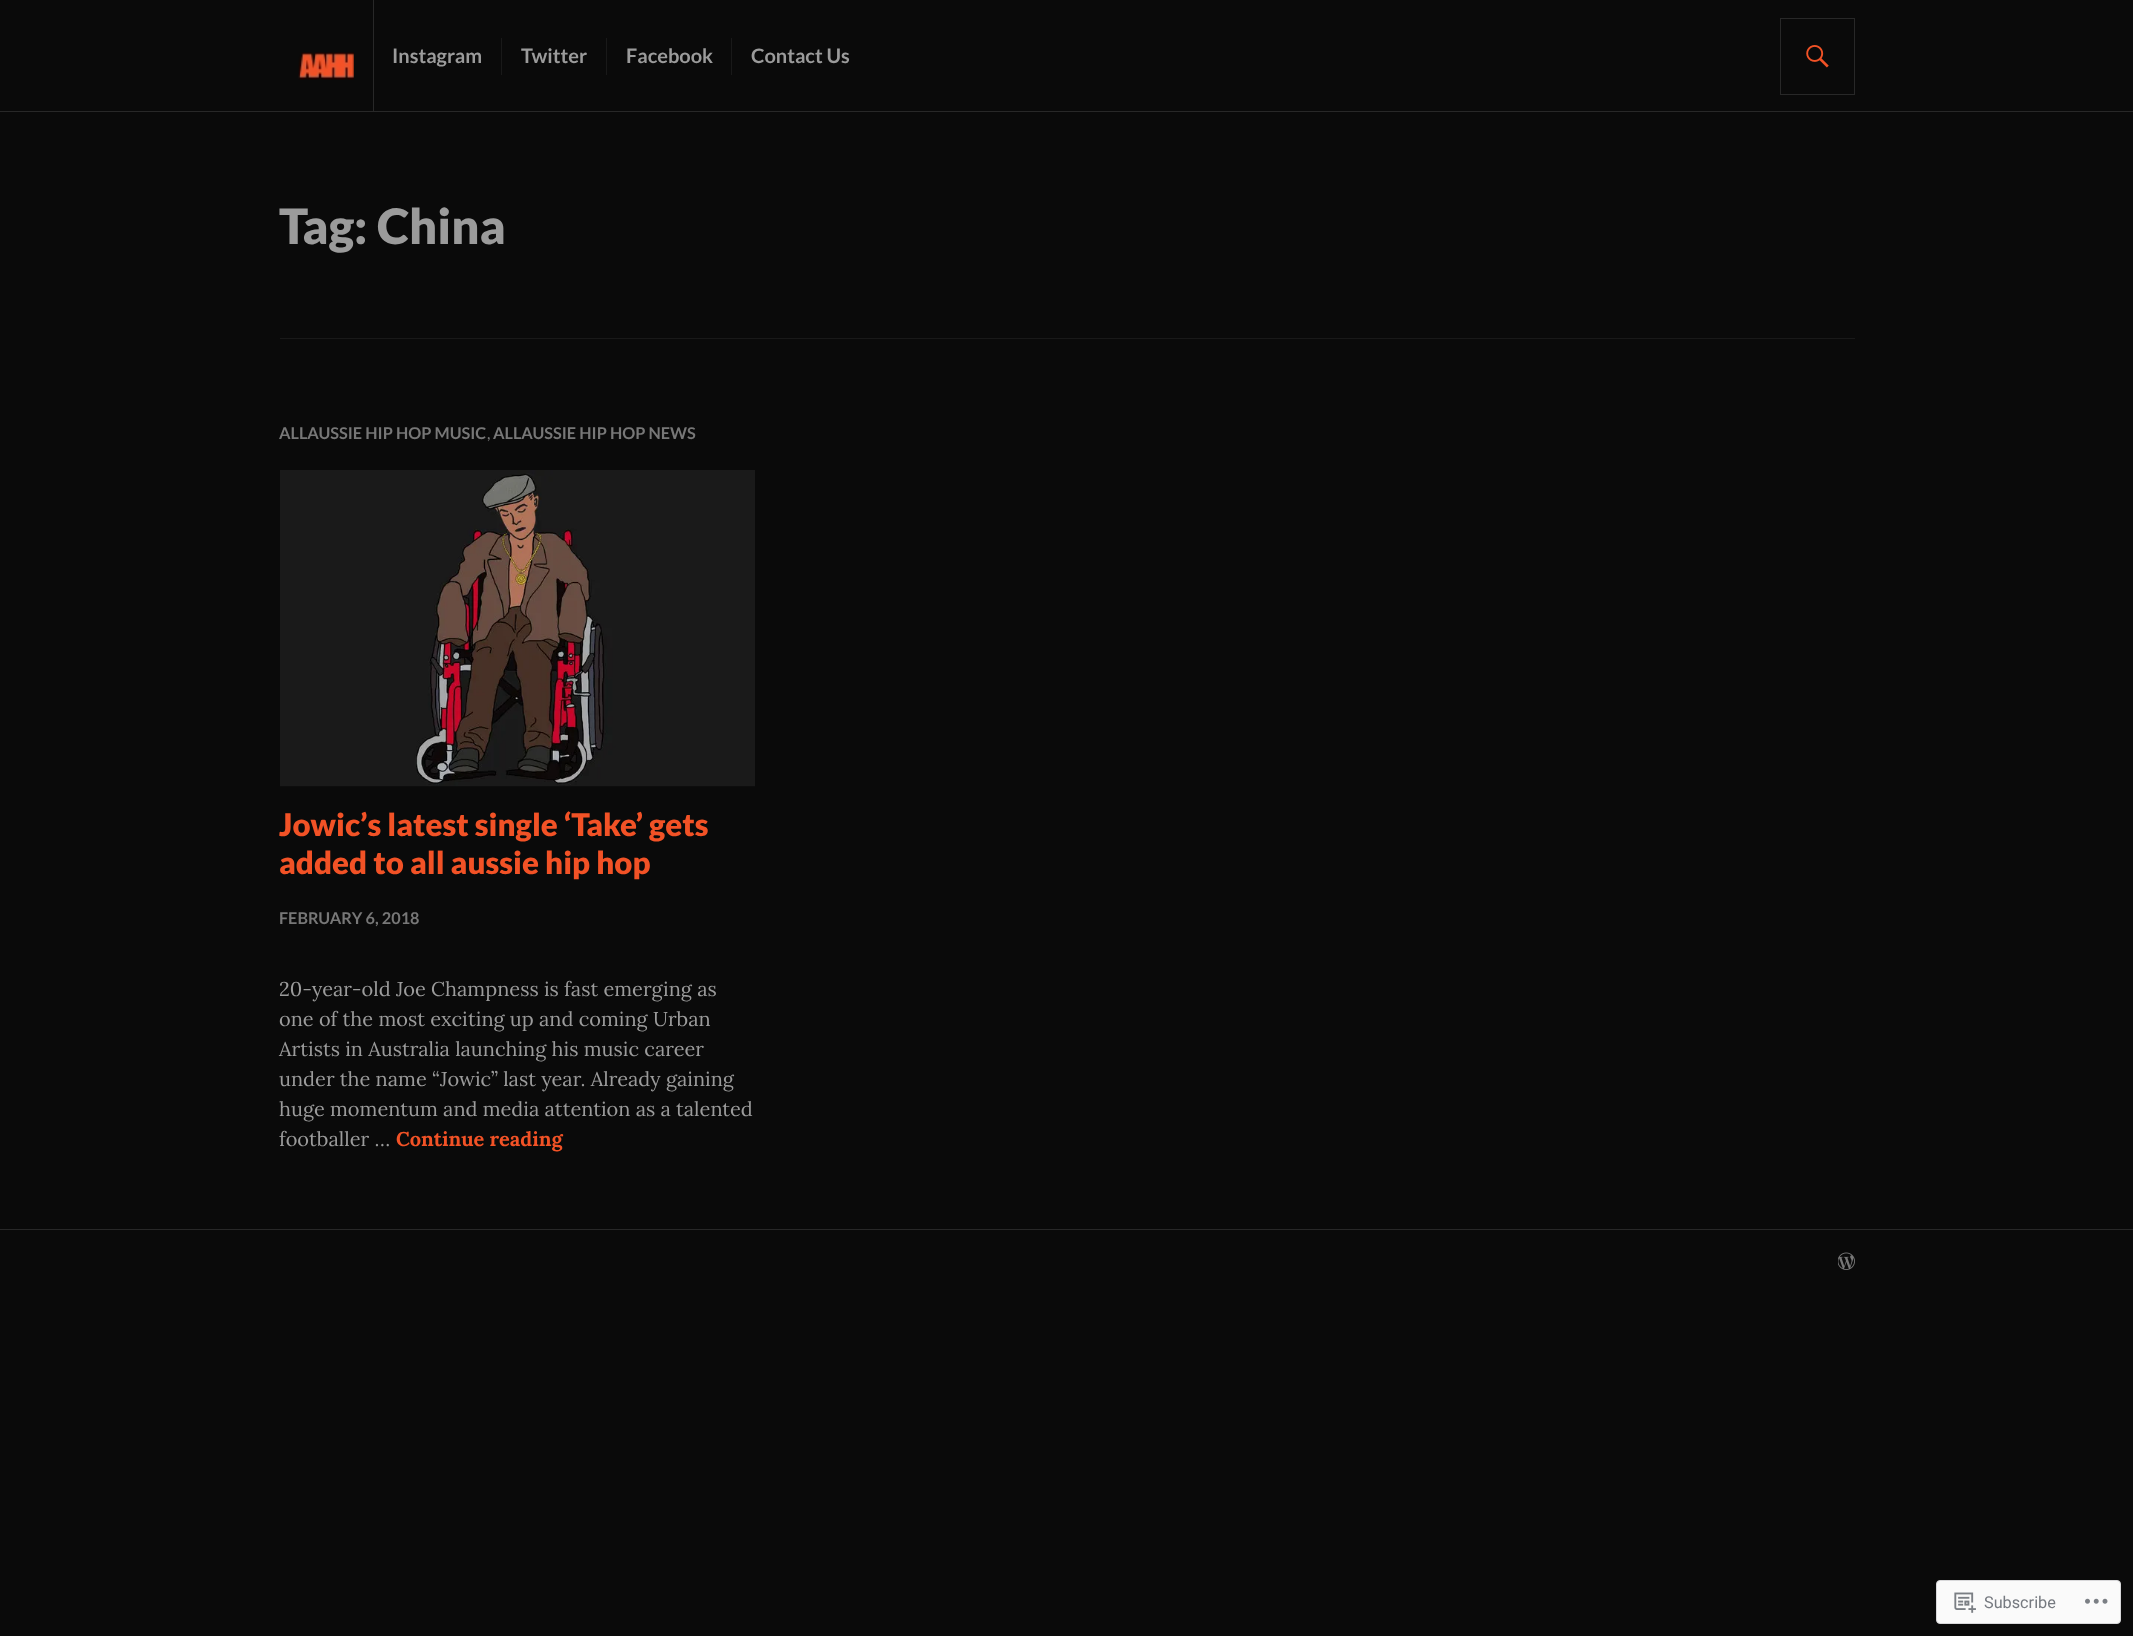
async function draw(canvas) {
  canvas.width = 2133
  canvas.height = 1636
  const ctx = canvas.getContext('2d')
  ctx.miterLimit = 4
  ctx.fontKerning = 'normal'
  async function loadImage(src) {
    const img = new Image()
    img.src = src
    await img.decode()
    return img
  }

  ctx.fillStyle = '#0a0a0a'
  ctx.fillRect(0, 0, 2133, 1636)
  ctx.fillStyle = '#282828'
  ctx.fillRect(0, 111, 2133, 1)
  ctx.drawImage(await loadImage('image0.png'), 298, 52, 56, 28)
  ctx.fillRect(373, 0, 1, 111)
  ctx.font = 'bold 20px Lato'
  ctx.fillStyle = '#9b9b9b'
  ctx.fillText('Instagram', 392, 63)
  ctx.fillStyle = '#191919'
  ctx.fillRect(501, 38, 1, 37)
  ctx.fillStyle = '#9b9b9b'
  ctx.fillText('Twitter', 521, 63)
  ctx.fillStyle = '#191919'
  ctx.fillRect(606, 38, 1, 37)
  ctx.fillStyle = '#9b9b9b'
  ctx.fillText('Facebook', 626, 63)
  ctx.fillStyle = '#191919'
  ctx.fillRect(731, 38, 1, 37)
  ctx.fillStyle = '#9b9b9b'
  ctx.fillText('Contact Us', 751, 63)
  ctx.strokeStyle = '#282828'
  ctx.strokeRect(1780.5, 18.5, 74, 76)
  ctx.drawImage(await loadImage('image1.png'), 1806, 45, 23, 23)
  ctx.fillStyle = '#191919'
  ctx.fillRect(280, 338, 1575, 1)
  ctx.font = '900 48.75px Lato'
  ctx.fillStyle = '#9b9b9b'
  ctx.fillText('Tag: China', 279, 244)
  ctx.font = 'bold 16.25px Lato'
  ctx.fillStyle = '#777'
  ctx.fillText('ALLAUSSIE HIP HOP MUSIC', 279, 439)
  ctx.font = '16.25px Lato'
  ctx.fillText(',', 487, 439)
  ctx.font = 'bold 16.25px Lato'
  ctx.fillText('ALLAUSSIE HIP HOP NEWS', 493, 439)
  ctx.drawImage(await loadImage('image2.png'), 280, 470, 475, 317)
  ctx.font = '900 31.25px Lato'
  ctx.fillStyle = '#f25226'
  ctx.fillText('Jowic’s latest single ‘Take’ gets', 279, 836)
  ctx.fillText('added to all aussie hip hop', 279, 874)
  ctx.font = 'bold 16.25px Lato'
  ctx.fillStyle = '#777'
  ctx.fillText('FEBRUARY 6, 2018', 279, 924)
  ctx.font = '20px Lora'
  ctx.fillStyle = '#9b9b9b'
  ctx.fillText('20-year-old Joe Champness is fast emerging as', 279, 996)
  ctx.fillText('one of the most exciting up and coming Urban', 279, 1026)
  ctx.fillText('Artists in Australia launching his music career', 279, 1056)
  ctx.fillText('under the name “Jowic” last year. Already gaining', 279, 1086)
  ctx.fillText('huge momentum and media attention as a talented', 279, 1116)
  ctx.fillText('footballer …', 279, 1146)
  ctx.font = 'bold 20px Lora'
  ctx.fillStyle = '#f25226'
  ctx.fillText('Continue reading', 396, 1146)
  ctx.fillStyle = '#282828'
  ctx.fillRect(0, 1229, 2133, 1)
  ctx.drawImage(await loadImage('image3.png'), 1838, 1252, 17, 18)
  ctx.fillStyle = '#fafafa'
  ctx.beginPath()
  ctx.roundRect(1936.5, 1580.5, 184, 43, 3.5)
  ctx.fill()
  ctx.strokeStyle = '#d8d8da'
  ctx.stroke()
  ctx.drawImage(await loadImage('image4.png'), 1954, 1592, 22, 21)
  ctx.font = '16.25px Roboto'
  ctx.fillStyle = '#767a80'
  ctx.fillText('Subscribe', 1984, 1608)
  ctx.drawImage(await loadImage('image5.png'), 2085, 1598, 23, 6)
}

draw(document.querySelector('canvas'))
